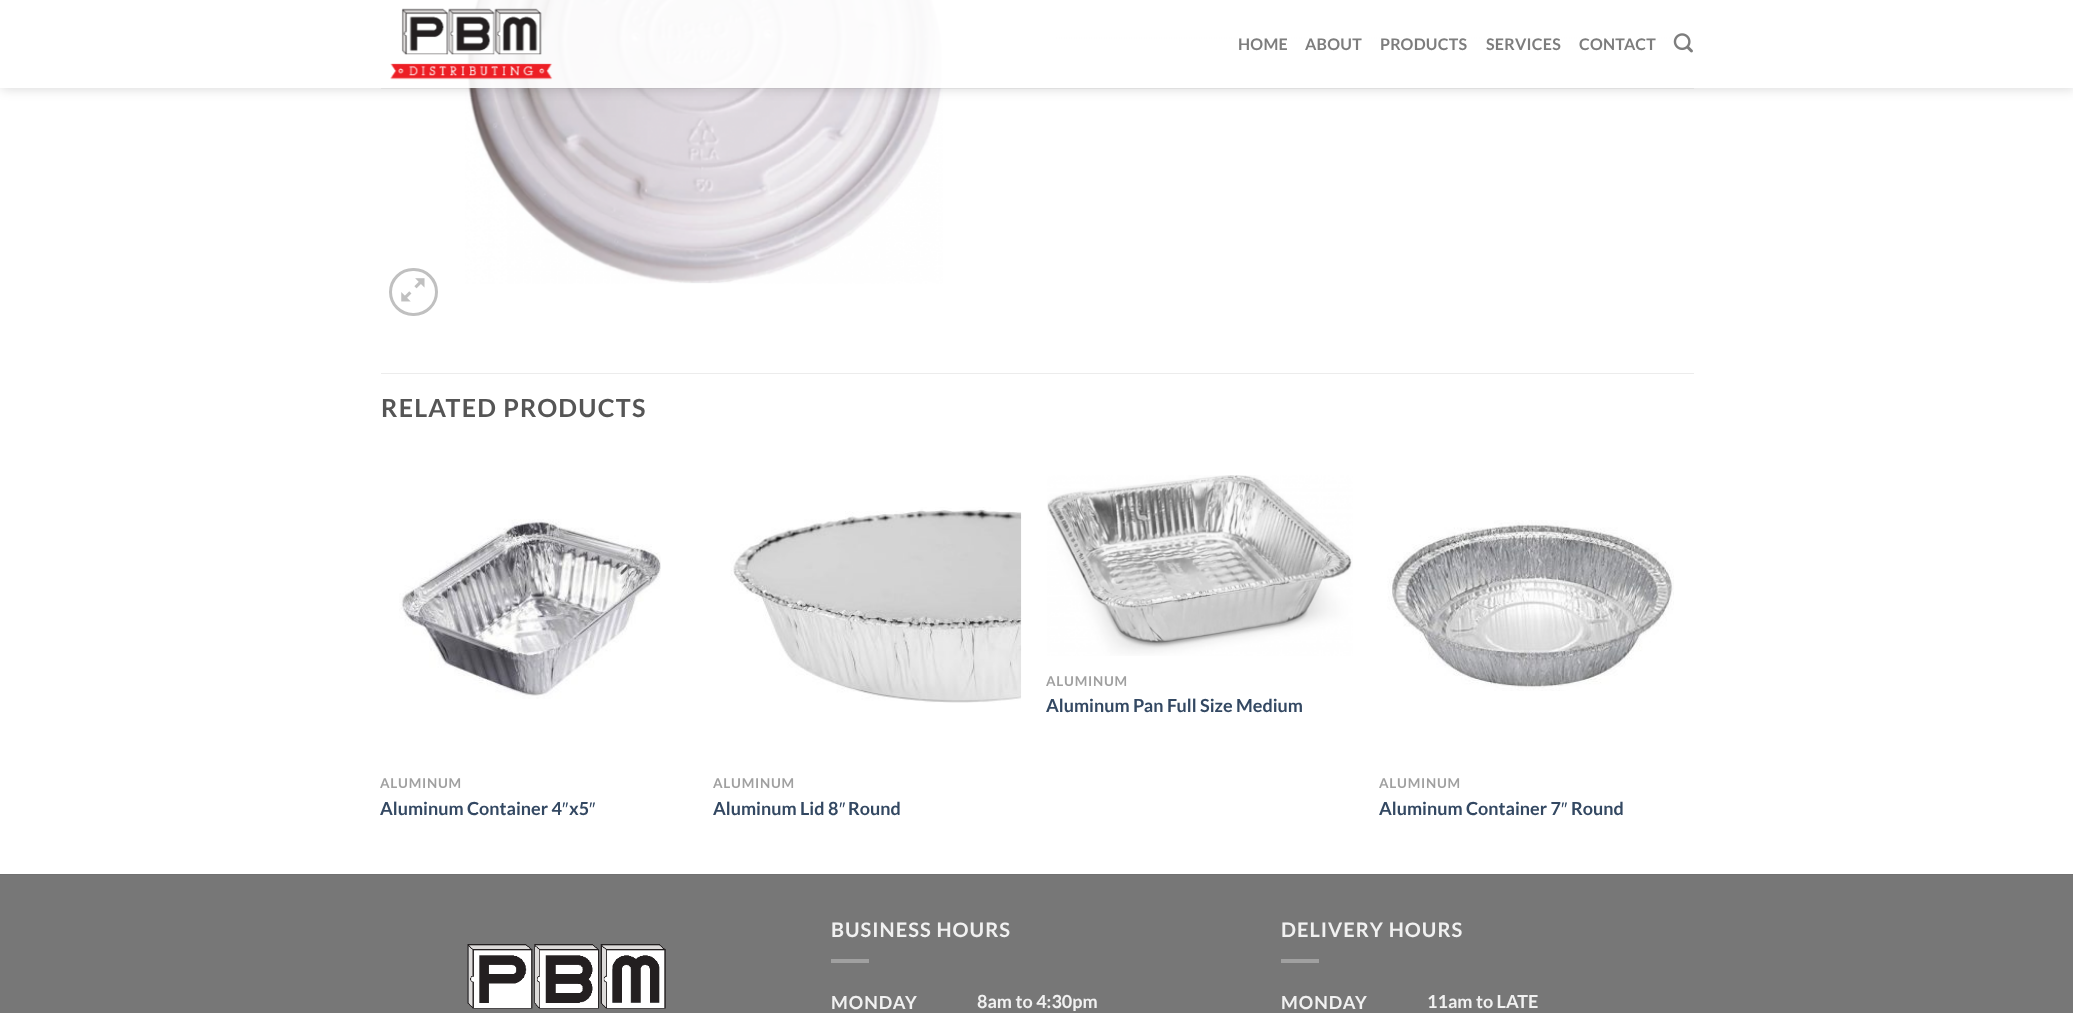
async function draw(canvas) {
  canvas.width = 2073
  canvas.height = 1013
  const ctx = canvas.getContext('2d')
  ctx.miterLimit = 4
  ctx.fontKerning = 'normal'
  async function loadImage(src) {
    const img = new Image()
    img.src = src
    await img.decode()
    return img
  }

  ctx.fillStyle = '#fff'
  ctx.fillRect(0, 0, 2073, 1013)
  ctx.drawImage(await loadImage('image2.png'), 465, 0, 478, 284)
  ctx.beginPath()
  ctx.moveTo(1056, -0.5)
  ctx.lineTo(1694, -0.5)
  ctx.strokeStyle = '#ddd'
  ctx.lineWidth = 1.2
  ctx.setLineDash([1.25, 1.25])
  ctx.stroke()
  ctx.beginPath()
  ctx.moveTo(1056, 38)
  ctx.lineTo(1694, 38)
  ctx.stroke()
  ctx.save()
  ctx.beginPath()
  ctx.moveTo(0, 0)
  ctx.lineTo(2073, 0)
  ctx.lineTo(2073, 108)
  ctx.lineTo(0, 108)
  ctx.closePath()
  ctx.moveTo(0, 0)
  ctx.lineTo(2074, 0)
  ctx.lineTo(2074, 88)
  ctx.lineTo(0, 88)
  ctx.closePath()
  ctx.clip('evenodd')
  ctx.fillStyle = '#00000026'
  ctx.filter = 'blur(6px)'
  ctx.beginPath()
  ctx.rect(1, 1, 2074, 88)
  ctx.fill()
  ctx.filter = 'none'
  ctx.restore()
  ctx.fillStyle = '#ffffffe6'
  ctx.fillRect(0, 0, 2073, 88)
  ctx.drawImage(await loadImage('image0.png'), 390, 8, 163, 72)
  ctx.letterSpacing = '0.25px'
  ctx.font = 'bold 16px Lato'
  ctx.fillStyle = '#7d7d7d'
  ctx.fillText('HOME', 1238, 50)
  ctx.fillText('ABOUT', 1305, 50)
  ctx.fillText('PRODUCTS', 1380, 50)
  ctx.fillText('SERVICES', 1486, 50)
  ctx.fillText('CONTACT', 1579, 50)
  ctx.drawImage(await loadImage('image1.png'), 1673, 33, 20, 20)
  ctx.fillStyle = '#7777771a'
  ctx.fillRect(381, 88, 1313, 1)
  ctx.beginPath()
  ctx.roundRect(390.5, 269.5, 46, 45, 22.5)
  ctx.strokeStyle = '#c0c0c0'
  ctx.lineWidth = 3
  ctx.setLineDash([])
  ctx.stroke()
  ctx.drawImage(await loadImage('image3.png'), 401, 278, 24, 24)
  ctx.fillStyle = '#ececec'
  ctx.fillRect(381, 373, 1313, 1)
  ctx.letterSpacing = '1.25px'
  ctx.font = 'bold 25px Lato'
  ctx.fillStyle = '#555'
  ctx.fillText('RELATED PRODUCTS', 381, 417)
  ctx.drawImage(await loadImage('image4.png'), 1047, 475, 306, 181)
  ctx.letterSpacing = '0.75px'
  ctx.font = 'bold 13.5px Lato'
  ctx.fillStyle = '#a0a0a0'
  ctx.fillText('ALUMINUM', 1046, 686)
  ctx.letterSpacing = '0px'
  ctx.font = 'bold 18px Lato'
  ctx.fillStyle = '#334862'
  ctx.fillText('Aluminum Pan Full Size Medium', 1046, 712)
  ctx.drawImage(await loadImage('image5.png'), 399, 519, 262, 180)
  ctx.letterSpacing = '0.75px'
  ctx.font = 'bold 13.5px Lato'
  ctx.fillStyle = '#a0a0a0'
  ctx.fillText('ALUMINUM', 380, 788)
  ctx.letterSpacing = '0px'
  ctx.font = 'bold 18px Lato'
  ctx.fillStyle = '#334862'
  ctx.fillText('Aluminum Container 4', 380, 815)
  ctx.font = '18px Liberation Sans'
  ctx.fillText('″', 562, 815)
  ctx.font = 'bold 18px Lato'
  ctx.fillText('x5', 569, 815)
  ctx.font = '18px Liberation Sans'
  ctx.fillText('″', 589, 815)
  ctx.drawImage(await loadImage('image6.png'), 730, 507, 292, 196)
  ctx.letterSpacing = '0.75px'
  ctx.font = 'bold 13.5px Lato'
  ctx.fillStyle = '#a0a0a0'
  ctx.fillText('ALUMINUM', 713, 788)
  ctx.letterSpacing = '0px'
  ctx.font = 'bold 18px Lato'
  ctx.fillStyle = '#334862'
  ctx.fillText('Aluminum Lid 8', 713, 815)
  ctx.font = '18px Liberation Sans'
  ctx.fillText('″', 839, 815)
  ctx.font = 'bold 18px Lato'
  ctx.fillText('Round', 848, 815)
  ctx.drawImage(await loadImage('image7.png'), 1387, 520, 287, 171)
  ctx.letterSpacing = '0.75px'
  ctx.font = 'bold 13.5px Lato'
  ctx.fillStyle = '#a0a0a0'
  ctx.fillText('ALUMINUM', 1379, 788)
  ctx.letterSpacing = '0px'
  ctx.font = 'bold 18px Lato'
  ctx.fillStyle = '#334862'
  ctx.fillText('Aluminum Container 7', 1379, 815)
  ctx.font = '18px Liberation Sans'
  ctx.fillText('″', 1561, 815)
  ctx.font = 'bold 18px Lato'
  ctx.fillText('Round', 1571, 815)
  ctx.fillStyle = '#777'
  ctx.fillRect(0, 875, 2073, 138)
  ctx.fillStyle = '#717171'
  ctx.fillRect(0, 874, 2073, 1)
  ctx.drawImage(await loadImage('image8.png'), 467, 944, 199, 65)
  ctx.letterSpacing = '1px'
  ctx.font = 'bold 20px Lato'
  ctx.fillStyle = '#f1f1f1'
  ctx.fillText('BUSINESS HOURS', 831, 937)
  ctx.fillStyle = '#a0a0a0'
  ctx.fillRect(831, 959, 38, 4)
  ctx.font = 'bold 18px Lato'
  ctx.fillStyle = '#f1f1f1'
  ctx.fillText('MONDAY', 831, 1009)
  ctx.letterSpacing = '0px'
  ctx.fillText('8am to 4:30pm', 977, 1008)
  ctx.letterSpacing = '1px'
  ctx.font = 'bold 20px Lato'
  ctx.fillText('DELIVERY HOURS', 1281, 937)
  ctx.fillStyle = '#a0a0a0'
  ctx.fillRect(1281, 959, 38, 4)
  ctx.font = 'bold 18px Lato'
  ctx.fillStyle = '#f1f1f1'
  ctx.fillText('MONDAY', 1281, 1009)
  ctx.letterSpacing = '0px'
  ctx.fillText('11am to LATE', 1427, 1008)
}

draw(document.querySelector('canvas'))
